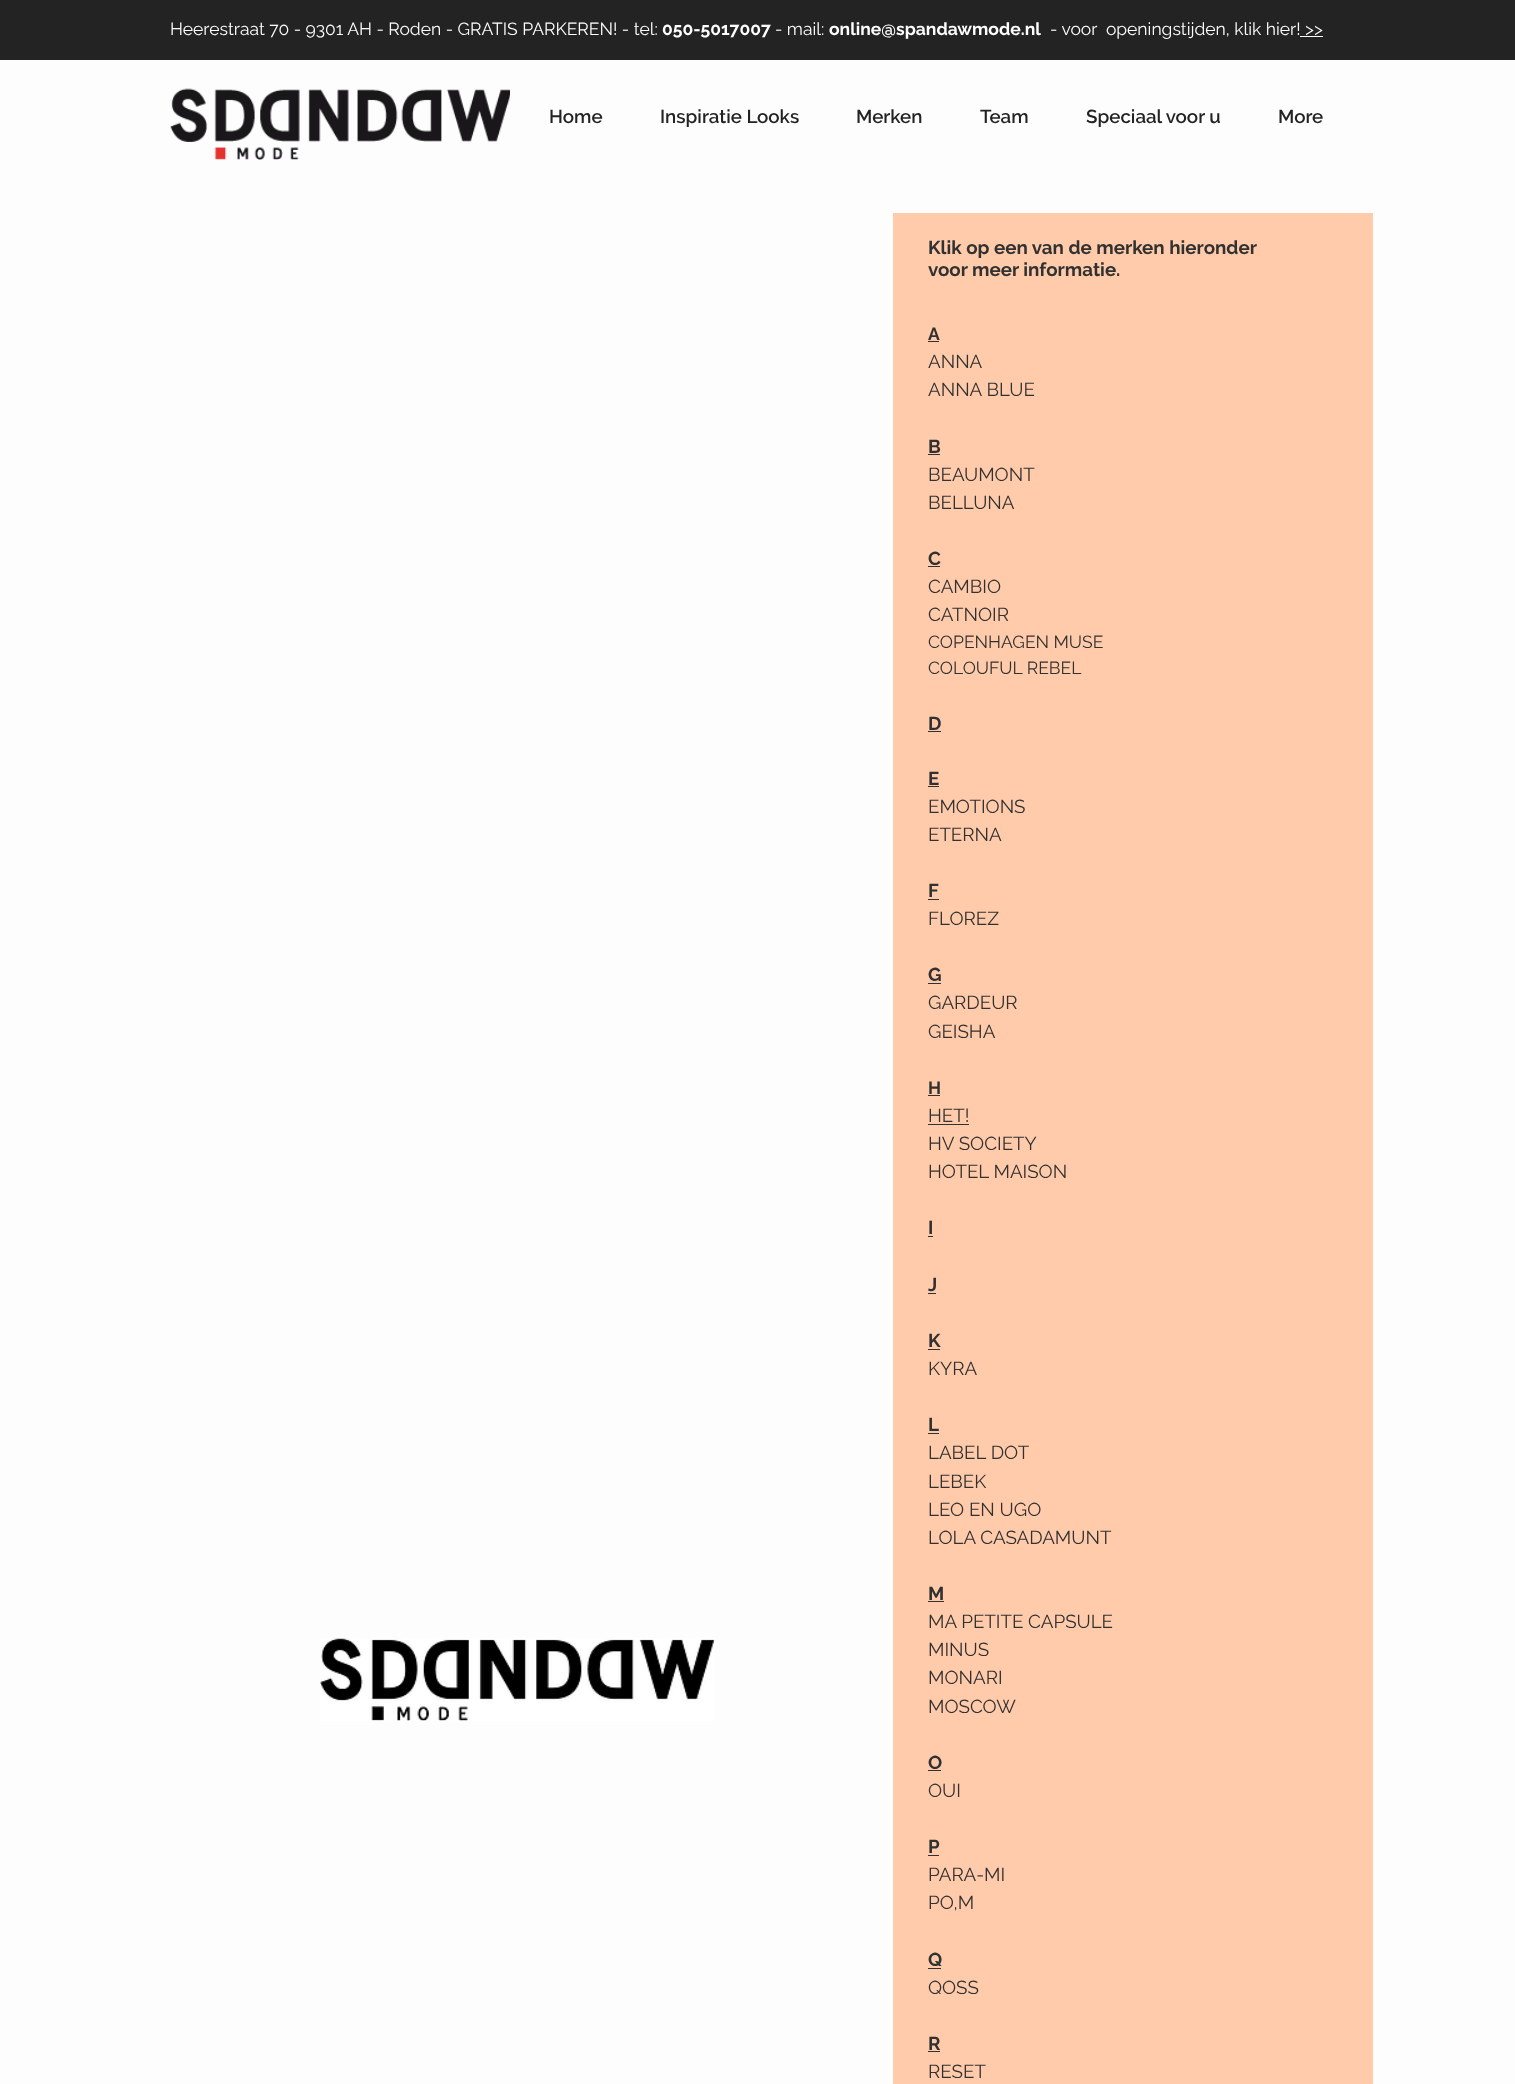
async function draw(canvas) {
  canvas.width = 1515
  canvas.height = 2084
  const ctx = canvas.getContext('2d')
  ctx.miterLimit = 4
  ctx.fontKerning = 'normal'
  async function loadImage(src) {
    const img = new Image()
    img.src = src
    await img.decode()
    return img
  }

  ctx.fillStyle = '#fdfdfd'
  ctx.fillRect(0, 0, 1515, 2084)
  ctx.fillStyle = '#242323'
  ctx.fillRect(0, 0, 1515, 60)
  ctx.font = '17.5px Raleway'
  ctx.fillStyle = '#fdfdfd'
  ctx.fillText('Heerestraat 70 - 9301 AH - Roden - GRATIS PARKEREN! - tel:', 170, 35)
  ctx.font = 'bold 17.5px Raleway'
  ctx.fillText('050-5017007', 662, 35)
  ctx.font = '17.5px Raleway'
  ctx.fillText('- mail:', 775, 35)
  ctx.font = 'bold 17.5px Raleway'
  ctx.fillText('online@spandawmode.nl', 829, 35)
  ctx.font = '17.5px Raleway'
  ctx.fillText('- voor  openingstijden, klik hier! >>', 1050, 35)
  ctx.fillRect(1300, 36, 23, 1)
  ctx.drawImage(await loadImage('image0.png'), 170, 88, 340, 72)
  ctx.font = '600 18.75px Raleway'
  ctx.fillStyle = '#232323'
  ctx.fillText('Home', 549, 123)
  ctx.fillText('Inspiratie Looks', 660, 123)
  ctx.fillText('Merken', 856, 123)
  ctx.fillText('Team', 980, 123)
  ctx.fillText('Speciaal voor u', 1086, 123)
  ctx.fillText('More', 1278, 123)
  ctx.drawImage(await loadImage('image1.png'), 320, 1638, 395, 83)
  ctx.fillStyle = '#ffcbaa'
  ctx.fillRect(893, 213, 480, 1871)
  ctx.font = 'bold 18.75px Raleway'
  ctx.fillStyle = '#313131'
  ctx.fillText('Klik op een van de merken hieronder', 928, 254)
  ctx.fillText('voor meer informatie.', 928, 276)
  ctx.font = 'bold 17.5px Raleway'
  ctx.fillText('A', 928, 340)
  ctx.fillRect(928, 341, 11, 1)
  ctx.font = '18.75px Raleway'
  ctx.fillText('ANNA', 928, 368)
  ctx.fillText('ANNA BLUE', 928, 396)
  ctx.font = 'bold 18.75px Raleway'
  ctx.fillText('B', 928, 453)
  ctx.fillRect(928, 454, 12, 1)
  ctx.font = '18.75px Raleway'
  ctx.fillText('BEAUMONT', 928, 481)
  ctx.fillText('BELLUNA', 928, 509)
  ctx.font = 'bold 18.75px Raleway'
  ctx.fillText('C', 928, 565)
  ctx.fillRect(928, 566, 12, 1)
  ctx.font = '18.75px Raleway'
  ctx.fillText('CAMBIO', 928, 593)
  ctx.fillText('CATNOIR', 928, 621)
  ctx.font = '17.5px Raleway'
  ctx.fillText('COPENHAGEN MUSE', 928, 648)
  ctx.fillText('COLOUFUL REBEL', 928, 674)
  ctx.font = 'bold 18.75px Raleway'
  ctx.fillText('D', 928, 730)
  ctx.fillRect(928, 731, 13, 1)
  ctx.fillText('E', 928, 785)
  ctx.fillRect(928, 786, 11, 1)
  ctx.font = '18.75px Raleway'
  ctx.fillText('EMOTIONS', 928, 813)
  ctx.fillText('ETERNA', 928, 841)
  ctx.font = 'bold 18.75px Raleway'
  ctx.fillText('F', 928, 897)
  ctx.fillRect(928, 899, 11, 1)
  ctx.font = '18.75px Raleway'
  ctx.fillText('FLOREZ', 928, 925)
  ctx.font = 'bold 18.75px Raleway'
  ctx.fillText('G', 928, 981)
  ctx.fillRect(928, 983, 13, 1)
  ctx.font = '18.75px Raleway'
  ctx.fillText('GARDEUR', 928, 1009)
  ctx.fillText('GEISHA', 928, 1038)
  ctx.font = 'bold 17.5px Raleway'
  ctx.fillText('H', 928, 1094)
  ctx.fillRect(928, 1095, 12, 1)
  ctx.font = '18.75px Raleway'
  ctx.fillText('HET!', 928, 1122)
  ctx.fillRect(928, 1124, 41, 1)
  ctx.fillText('HV SOCIETY', 928, 1150)
  ctx.fillText('HOTEL MAISON', 928, 1178)
  ctx.font = 'bold 18.75px Raleway'
  ctx.fillText('I', 928, 1234)
  ctx.fillRect(928, 1236, 5, 1)
  ctx.fillText('J', 928, 1291)
  ctx.fillRect(928, 1293, 8, 1)
  ctx.fillText('K', 928, 1347)
  ctx.fillRect(928, 1349, 12, 1)
  ctx.font = '18.75px Raleway'
  ctx.fillText('KYRA', 928, 1375)
  ctx.font = 'bold 18.75px Raleway'
  ctx.fillText('L', 928, 1431)
  ctx.fillRect(928, 1433, 11, 1)
  ctx.font = '18.75px Raleway'
  ctx.fillText('LABEL DOT', 928, 1459)
  ctx.fillText('LEBEK', 928, 1488)
  ctx.fillText('LEO EN UGO', 928, 1516)
  ctx.fillText('LOLA CASADAMUNT', 928, 1544)
  ctx.font = 'bold 18.75px Raleway'
  ctx.fillText('M', 928, 1600)
  ctx.fillRect(928, 1601, 16, 1)
  ctx.font = '18.75px Raleway'
  ctx.fillText('MA PETITE CAPSULE', 928, 1628)
  ctx.fillText('MINUS', 928, 1656)
  ctx.fillText('MONARI', 928, 1684)
  ctx.fillText('MOSCOW', 928, 1713)
  ctx.font = 'bold 18.75px Raleway'
  ctx.fillText('O', 928, 1769)
  ctx.fillRect(928, 1770, 13, 1)
  ctx.font = '18.75px Raleway'
  ctx.fillText('OUI', 928, 1797)
  ctx.font = 'bold 18.75px Raleway'
  ctx.fillText('P', 928, 1853)
  ctx.fillRect(928, 1855, 11, 1)
  ctx.font = '18.75px Raleway'
  ctx.fillText('PARA-MI', 928, 1881)
  ctx.fillText('PO,M', 928, 1909)
  ctx.font = 'bold 18.75px Raleway'
  ctx.fillText('Q', 928, 1966)
  ctx.fillRect(928, 1968, 13, 1)
  ctx.font = '18.75px Raleway'
  ctx.fillText('QOSS', 928, 1994)
  ctx.font = 'bold 18.75px Raleway'
  ctx.fillText('R', 928, 2050)
  ctx.fillRect(928, 2051, 12, 1)
  ctx.font = '18.75px Raleway'
  ctx.fillText('RESET', 928, 2078)
}

draw(document.querySelector('canvas'))
